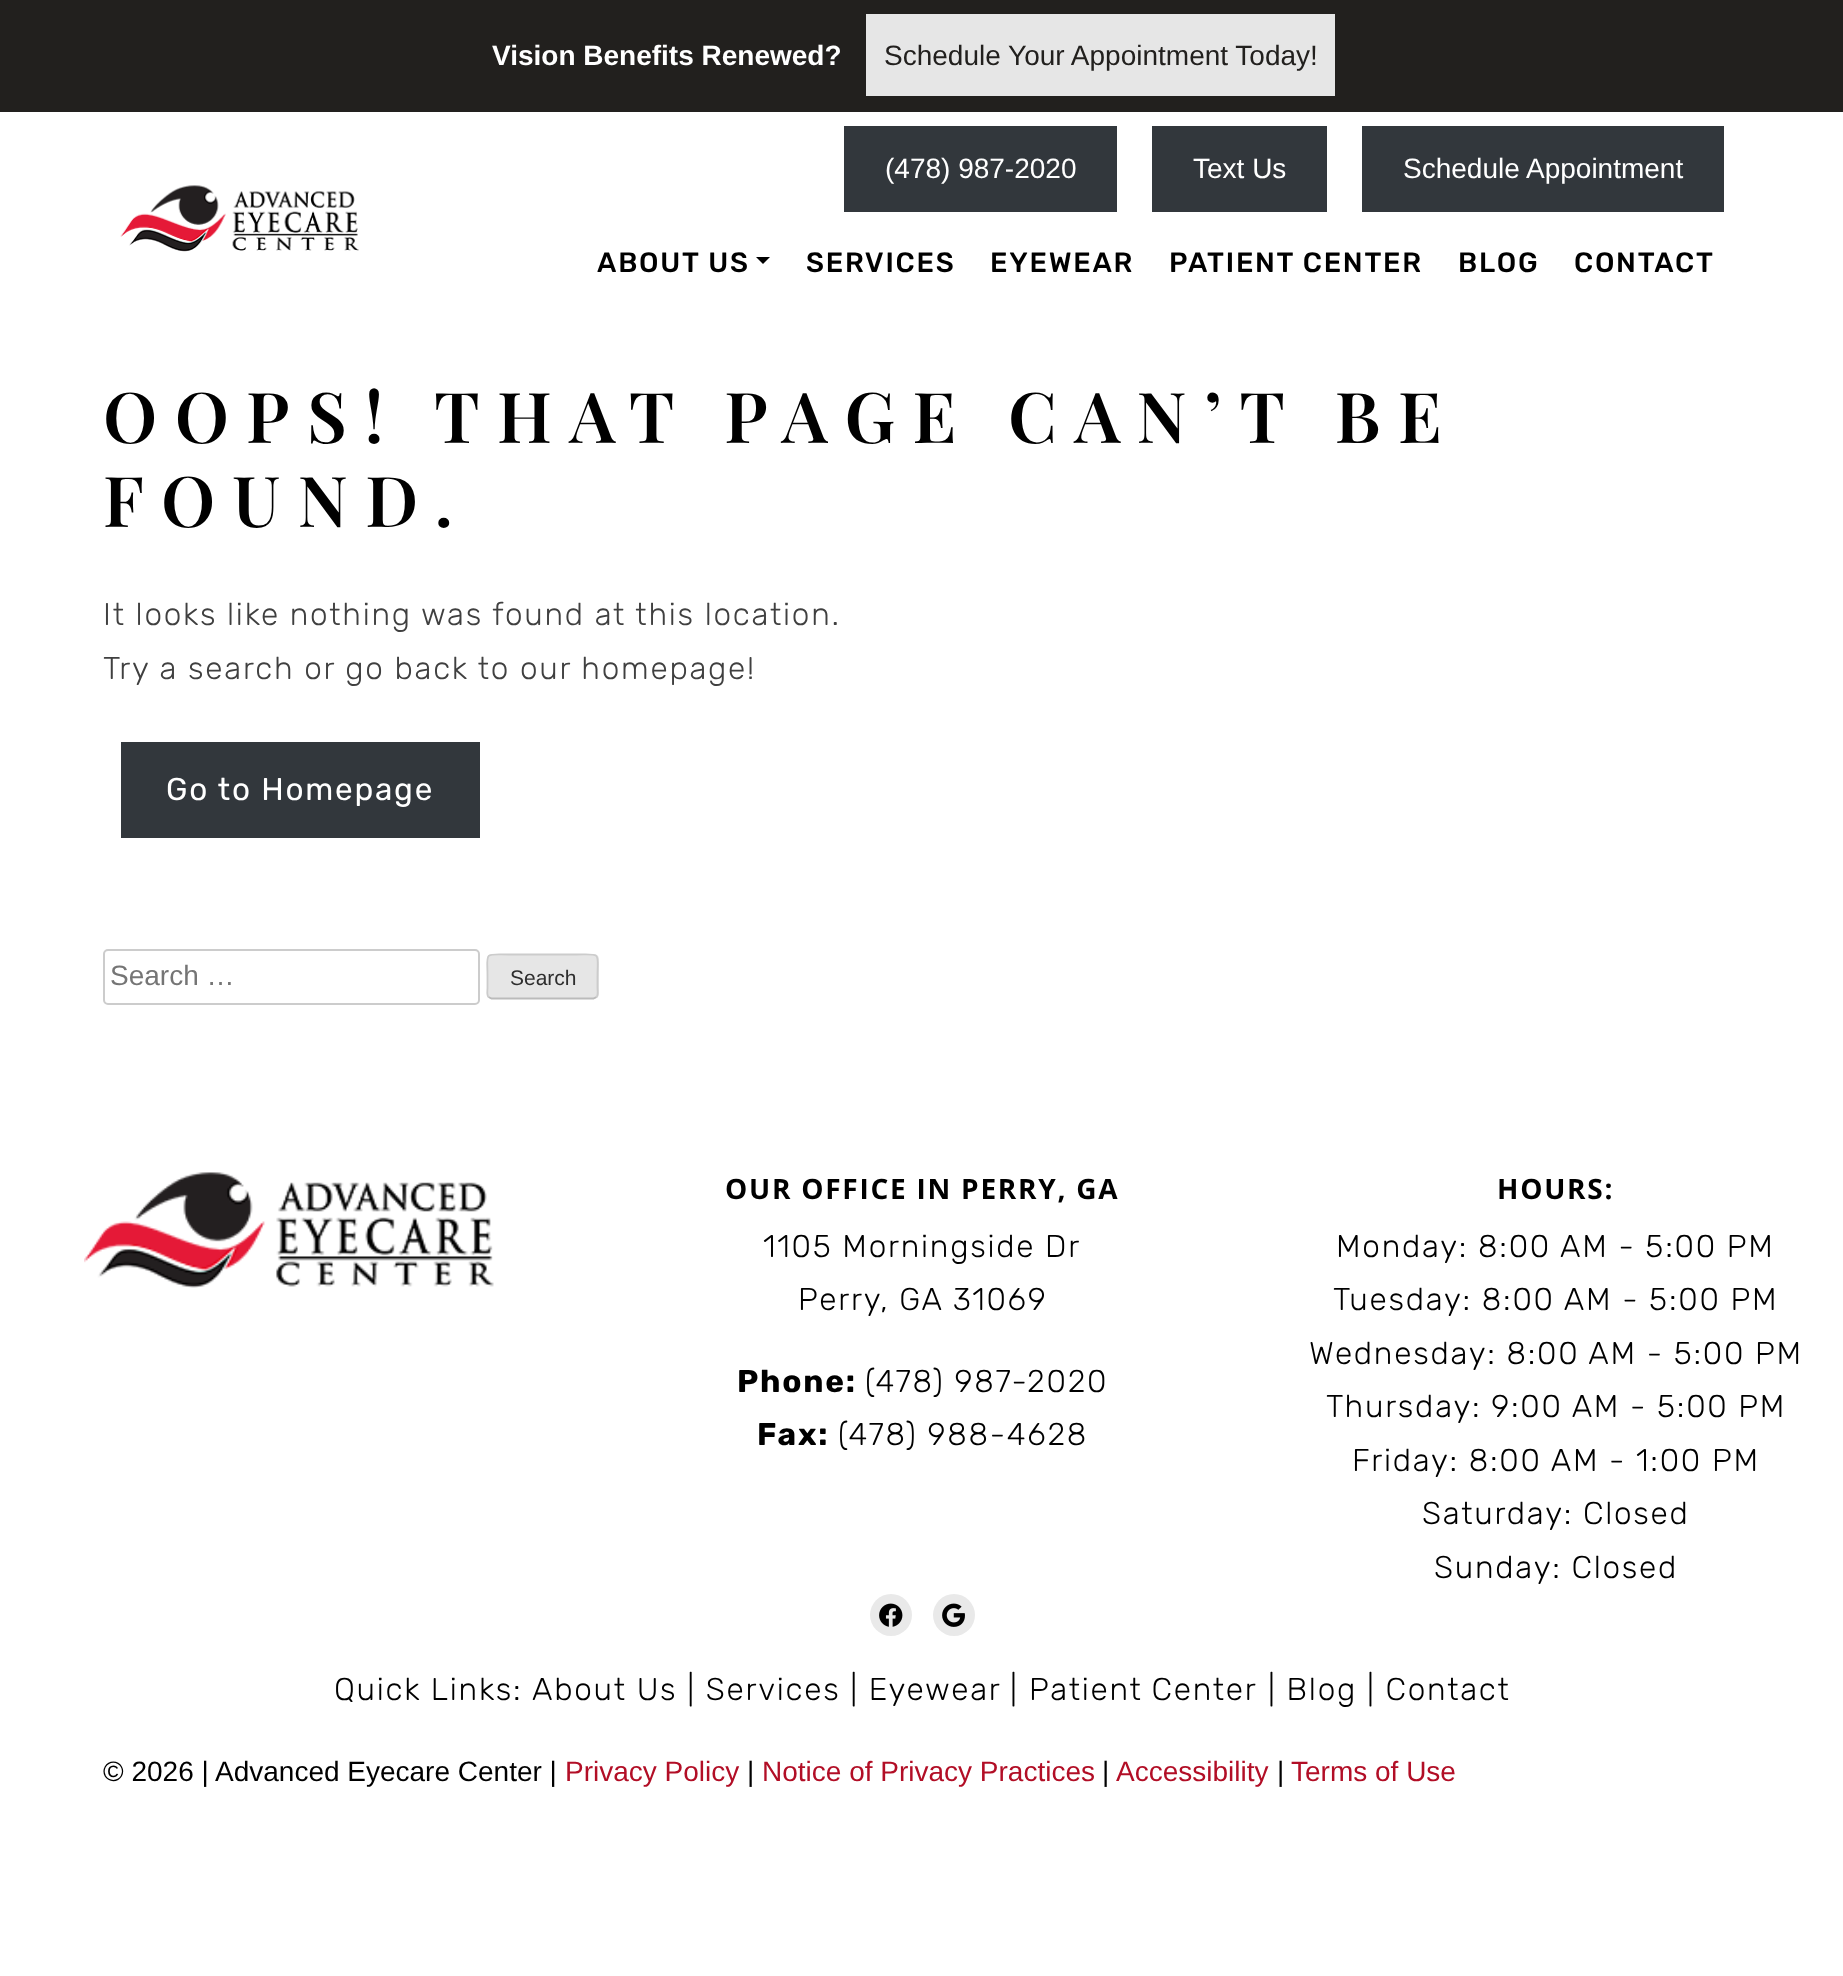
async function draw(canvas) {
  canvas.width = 1843
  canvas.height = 1976
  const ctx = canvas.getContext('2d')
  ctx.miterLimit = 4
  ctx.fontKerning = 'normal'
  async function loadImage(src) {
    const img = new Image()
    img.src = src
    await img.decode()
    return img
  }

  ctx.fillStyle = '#fff'
  ctx.fillRect(0, 0, 1843, 1976)
  ctx.fillStyle = '#22201e'
  ctx.fillRect(0, 0, 1843, 112)
  ctx.font = 'bold 28px Liberation Sans'
  ctx.fillStyle = '#fff'
  ctx.fillText('Vision Benefits Renewed?', 492, 65)
  ctx.fillStyle = '#e6e6e6'
  ctx.fillRect(866, 14, 469, 82)
  ctx.font = '28px Liberation Sans'
  ctx.fillStyle = '#22201e'
  ctx.fillText('Schedule Your Appointment Today!', 884, 65)
  ctx.drawImage(await loadImage('image0.png'), 120, 185, 239, 67)
  ctx.fillStyle = '#32373c'
  ctx.fillRect(844, 126, 273, 86)
  ctx.fillStyle = '#fff'
  ctx.fillText('(478) 987-2020', 885, 178)
  ctx.fillStyle = '#32373c'
  ctx.fillRect(1152, 126, 175, 86)
  ctx.fillStyle = '#fff'
  ctx.fillText('Text Us', 1193, 178)
  ctx.fillStyle = '#32373c'
  ctx.fillRect(1362, 126, 362, 86)
  ctx.fillStyle = '#fff'
  ctx.fillText('Schedule Appointment', 1403, 178)
  ctx.letterSpacing = '1.75px'
  ctx.font = '500 28px Rubik'
  ctx.fillStyle = '#000'
  ctx.fillText('ABOUT US', 597, 272)
  ctx.beginPath()
  ctx.moveTo(756, 257)
  ctx.lineTo(770, 257)
  ctx.lineTo(763, 264)
  ctx.closePath()
  ctx.fill()
  ctx.fillText('SERVICES', 806, 272)
  ctx.fillText('EYEWEAR', 990, 272)
  ctx.fillText('PATIENT CENTER', 1169, 272)
  ctx.fillText('BLOG', 1458, 272)
  ctx.fillText('CONTACT', 1574, 272)
  ctx.letterSpacing = '17.5px'
  ctx.font = '600 70px Playfair Display'
  ctx.fillText('OOPS! THAT PAGE CAN’T BE', 103, 443)
  ctx.fillText('FOUND.', 103, 527)
  ctx.letterSpacing = '1.75px'
  ctx.font = '300 31.5px Rubik'
  ctx.fillStyle = '#404040'
  ctx.fillText('It looks like nothing was found at this location.', 103, 625)
  ctx.fillText('Try a search or go back to our homepage!', 103, 679)
  ctx.fillStyle = '#32373c'
  ctx.fillRect(121, 742, 359, 96)
  ctx.font = '31.5px Rubik'
  ctx.fillStyle = '#fff'
  ctx.fillText('Go to Homepage', 166, 800)
  ctx.beginPath()
  ctx.roundRect(104, 950, 375, 54, 4)
  ctx.strokeStyle = '#ccc'
  ctx.lineWidth = 2
  ctx.stroke()
  ctx.letterSpacing = '0px'
  ctx.font = '28px Liberation Sans'
  ctx.fillStyle = '#757575'
  ctx.fillText('Search …', 110, 985)
  ctx.fillStyle = '#e6e6e6'
  ctx.beginPath()
  ctx.roundRect(487, 954, 112, 45, 5)
  ctx.fill()
  ctx.beginPath()
  ctx.moveTo(596.5, 997)
  ctx.lineTo(593.5, 998.5)
  ctx.lineTo(491.5, 998.5)
  ctx.lineTo(488.5, 997)
  ctx.strokeStyle = '#bbb'
  ctx.lineWidth = 1.8
  ctx.stroke()
  ctx.beginPath()
  ctx.moveTo(488.5, 997)
  ctx.bezierCurveTo(486.5, 995, 487.5, 990.5, 487.5, 988)
  ctx.lineTo(487.5, 976.5)
  ctx.bezierCurveTo(487.5, 951.5, 483, 954.5, 508.5, 954.5)
  ctx.lineTo(576.5, 954.5)
  ctx.bezierCurveTo(602, 954.5, 597.5, 951.5, 597.5, 976.5)
  ctx.lineTo(597.5, 988)
  ctx.bezierCurveTo(597.5, 990.5, 598.5, 995, 596.5, 997)
  ctx.strokeStyle = '#ccc'
  ctx.stroke()
  ctx.font = '21px Liberation Sans'
  ctx.fillStyle = '#2e2e2e'
  ctx.fillText('Search', 510, 985)
  ctx.drawImage(await loadImage('image1.png'), 84, 1172, 410, 116)
  ctx.letterSpacing = '1.75px'
  ctx.font = 'bold 28px Open Sans'
  ctx.fillStyle = '#000'
  ctx.fillText('OUR OFFICE IN PERRY, GA', 725, 1199)
  ctx.font = '300 31.5px Rubik'
  ctx.fillText('1105 Morningside Dr', 763, 1257)
  ctx.fillText('Perry, GA 31069', 798, 1310)
  ctx.font = 'bold 31.5px Rubik'
  ctx.fillText('Phone:', 737, 1392)
  ctx.font = '300 31.5px Rubik'
  ctx.fillText('(478) 987-2020', 865, 1392)
  ctx.font = 'bold 31.5px Rubik'
  ctx.fillText('Fax:', 757, 1445)
  ctx.font = '300 31.5px Rubik'
  ctx.fillText('(478) 988-4628', 838, 1445)
  ctx.font = 'bold 28px Open Sans'
  ctx.fillText('HOURS:', 1497, 1199)
  ctx.font = '300 31.5px Rubik'
  ctx.fillText('Monday: 8:00 AM - 5:00 PM', 1336, 1257)
  ctx.fillText('Tuesday: 8:00 AM - 5:00 PM', 1333, 1310)
  ctx.fillText('Wednesday: 8:00 AM - 5:00 PM', 1309, 1364)
  ctx.fillText('Thursday: 9:00 AM - 5:00 PM', 1326, 1417)
  ctx.fillText('Friday: 8:00 AM - 1:00 PM', 1352, 1471)
  ctx.fillText('Saturday: Closed', 1422, 1524)
  ctx.fillText('Sunday: Closed', 1434, 1578)
  ctx.fillStyle = '#e9e9e9'
  ctx.beginPath()
  ctx.arc(891, 1615, 21, 0, 2 * Math.PI)
  ctx.fill()
  ctx.drawImage(await loadImage('image2.png'), 879, 1603, 24, 24)
  ctx.beginPath()
  ctx.arc(954, 1615, 21, 0, 2 * Math.PI)
  ctx.fill()
  ctx.drawImage(await loadImage('image3.png'), 942, 1603, 23, 24)
  ctx.fillStyle = '#000'
  ctx.fillText('Quick Links:', 334, 1700)
  ctx.fillText('About Us | Services | Eyewear', 532, 1700)
  ctx.fillText('|', 1010, 1700)
  ctx.wordSpacing = '-1px'
  ctx.fillText('Patient Center', 1029, 1700)
  ctx.wordSpacing = '0px'
  ctx.fillText('| Blog | Contact', 1268, 1700)
  ctx.letterSpacing = '0px'
  ctx.font = '28px Liberation Sans'
  ctx.fillText('© 2026 | Advanced Eyecare Center |', 103, 1781)
  ctx.fillStyle = '#b20e26'
  ctx.fillText('Privacy Policy', 565, 1781)
  ctx.fillStyle = '#000'
  ctx.fillText('|', 747, 1781)
  ctx.fillStyle = '#b20e26'
  ctx.fillText('Notice of Privacy Practices', 762, 1781)
  ctx.fillStyle = '#000'
  ctx.fillText('|', 1102, 1781)
  ctx.fillStyle = '#b20e26'
  ctx.fillText('Accessibility', 1116, 1781)
  ctx.fillStyle = '#000'
  ctx.fillText('|', 1277, 1781)
  ctx.fillStyle = '#b20e26'
  ctx.fillText('Terms of Use', 1291, 1781)
}

draw(document.querySelector('canvas'))
